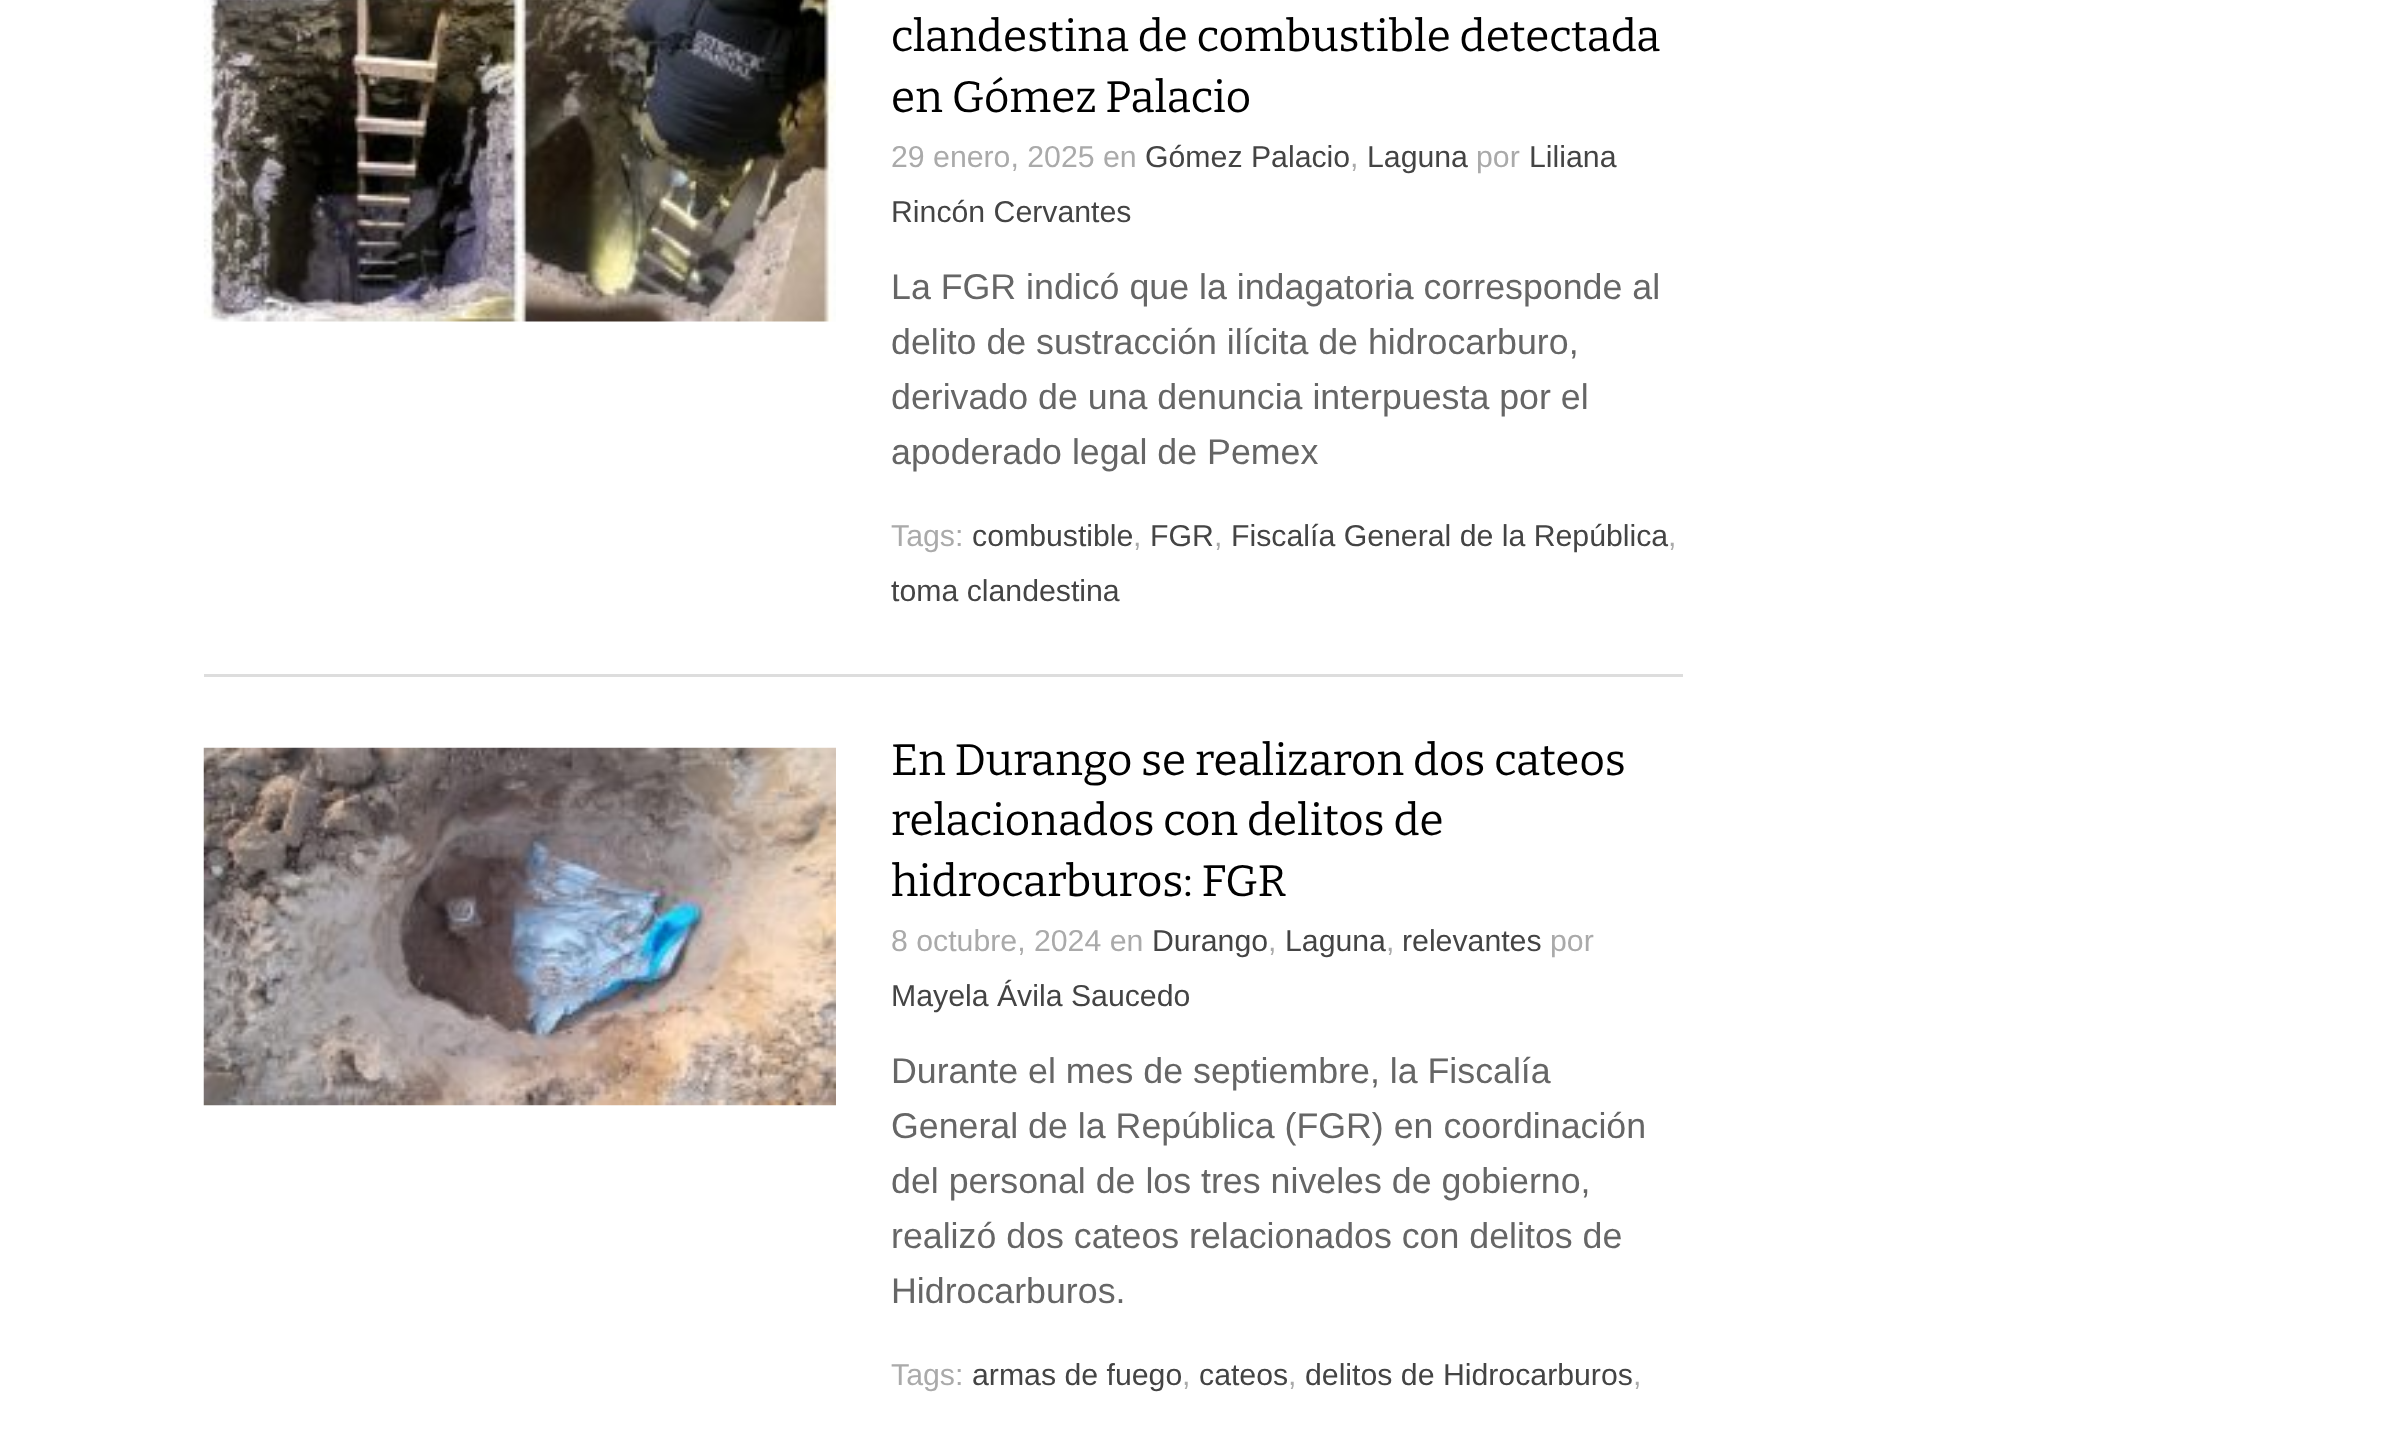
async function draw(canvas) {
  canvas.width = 2398
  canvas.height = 1431
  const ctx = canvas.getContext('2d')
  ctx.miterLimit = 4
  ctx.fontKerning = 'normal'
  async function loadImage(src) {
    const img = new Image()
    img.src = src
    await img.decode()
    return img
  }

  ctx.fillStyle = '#fff'
  ctx.fillRect(0, 0, 2398, 1431)
  ctx.fillStyle = '#ddd'
  ctx.fillRect(204, 674, 1479, 3)
  ctx.drawImage(await loadImage('image0.png'), 203, 0, 633, 322)
  ctx.font = '44px Bitter'
  ctx.fillStyle = '#000'
  ctx.fillText('clandestina de combustible detectada', 891, 51)
  ctx.fillText('en Gómez Palacio', 891, 112)
  ctx.font = '30.25px Liberation Sans'
  ctx.fillStyle = '#aaa'
  ctx.fillText('29 enero, 2025 en', 891, 167)
  ctx.fillStyle = '#444'
  ctx.fillText('Gómez Palacio', 1145, 167)
  ctx.fillStyle = '#aaa'
  ctx.fillText(',', 1350, 167)
  ctx.fillStyle = '#444'
  ctx.fillText('Laguna', 1367, 167)
  ctx.fillStyle = '#aaa'
  ctx.fillText('por', 1476, 167)
  ctx.fillStyle = '#444'
  ctx.fillText('Liliana', 1529, 167)
  ctx.fillText('Rincón Cervantes', 891, 222)
  ctx.font = '35.75px Liberation Sans'
  ctx.fillStyle = '#666'
  ctx.fillText('La FGR indicó que la indagatoria corresponde al', 891, 299)
  ctx.fillText('delito de sustracción ilícita de hidrocarburo,', 891, 354)
  ctx.fillText('derivado de una denuncia interpuesta por el', 891, 409)
  ctx.fillText('apoderado legal de Pemex', 891, 464)
  ctx.font = '30.25px Liberation Sans'
  ctx.fillStyle = '#aaa'
  ctx.fillText('Tags:', 891, 546)
  ctx.fillStyle = '#444'
  ctx.fillText('combustible', 972, 546)
  ctx.fillStyle = '#aaa'
  ctx.fillText(',', 1133, 546)
  ctx.fillStyle = '#444'
  ctx.fillText('FGR', 1150, 546)
  ctx.fillStyle = '#aaa'
  ctx.fillText(',', 1214, 546)
  ctx.fillStyle = '#444'
  ctx.fillText('Fiscalía General de la República', 1231, 546)
  ctx.fillStyle = '#aaa'
  ctx.fillText(',', 1668, 546)
  ctx.fillStyle = '#444'
  ctx.fillText('toma clandestina', 891, 601)
  ctx.drawImage(await loadImage('image1.png'), 203, 747, 633, 359)
  ctx.font = '44px Bitter'
  ctx.fillStyle = '#000'
  ctx.fillText('En Durango se realizaron dos cateos', 891, 775)
  ctx.fillText('relacionados con delitos de', 891, 835)
  ctx.fillText('hidrocarburos: FGR', 891, 896)
  ctx.font = '30.25px Liberation Sans'
  ctx.fillStyle = '#aaa'
  ctx.fillText('8 octubre, 2024 en', 891, 951)
  ctx.fillStyle = '#444'
  ctx.fillText('Durango', 1152, 951)
  ctx.fillStyle = '#aaa'
  ctx.fillText(',', 1268, 951)
  ctx.fillStyle = '#444'
  ctx.fillText('Laguna', 1285, 951)
  ctx.fillStyle = '#aaa'
  ctx.fillText(',', 1386, 951)
  ctx.fillStyle = '#444'
  ctx.fillText('relevantes', 1402, 951)
  ctx.fillStyle = '#aaa'
  ctx.fillText('por', 1550, 951)
  ctx.fillStyle = '#444'
  ctx.fillText('Mayela Ávila Saucedo', 891, 1006)
  ctx.font = '35.75px Liberation Sans'
  ctx.fillStyle = '#666'
  ctx.fillText('Durante el mes de septiembre, la Fiscalía', 891, 1083)
  ctx.fillText('General de la República (FGR) en coordinación', 891, 1138)
  ctx.fillText('del personal de los tres niveles de gobierno,', 891, 1193)
  ctx.fillText('realizó dos cateos relacionados con delitos de', 891, 1248)
  ctx.fillText('Hidrocarburos.', 891, 1303)
  ctx.font = '30.25px Liberation Sans'
  ctx.fillStyle = '#aaa'
  ctx.fillText('Tags:', 891, 1385)
  ctx.fillStyle = '#444'
  ctx.fillText('armas de fuego', 972, 1385)
  ctx.fillStyle = '#aaa'
  ctx.fillText(',', 1182, 1385)
  ctx.fillStyle = '#444'
  ctx.fillText('cateos', 1199, 1385)
  ctx.fillStyle = '#aaa'
  ctx.fillText(',', 1288, 1385)
  ctx.fillStyle = '#444'
  ctx.fillText('delitos de Hidrocarburos', 1305, 1385)
  ctx.fillStyle = '#aaa'
  ctx.fillText(',', 1633, 1385)
}

draw(document.querySelector('canvas'))
